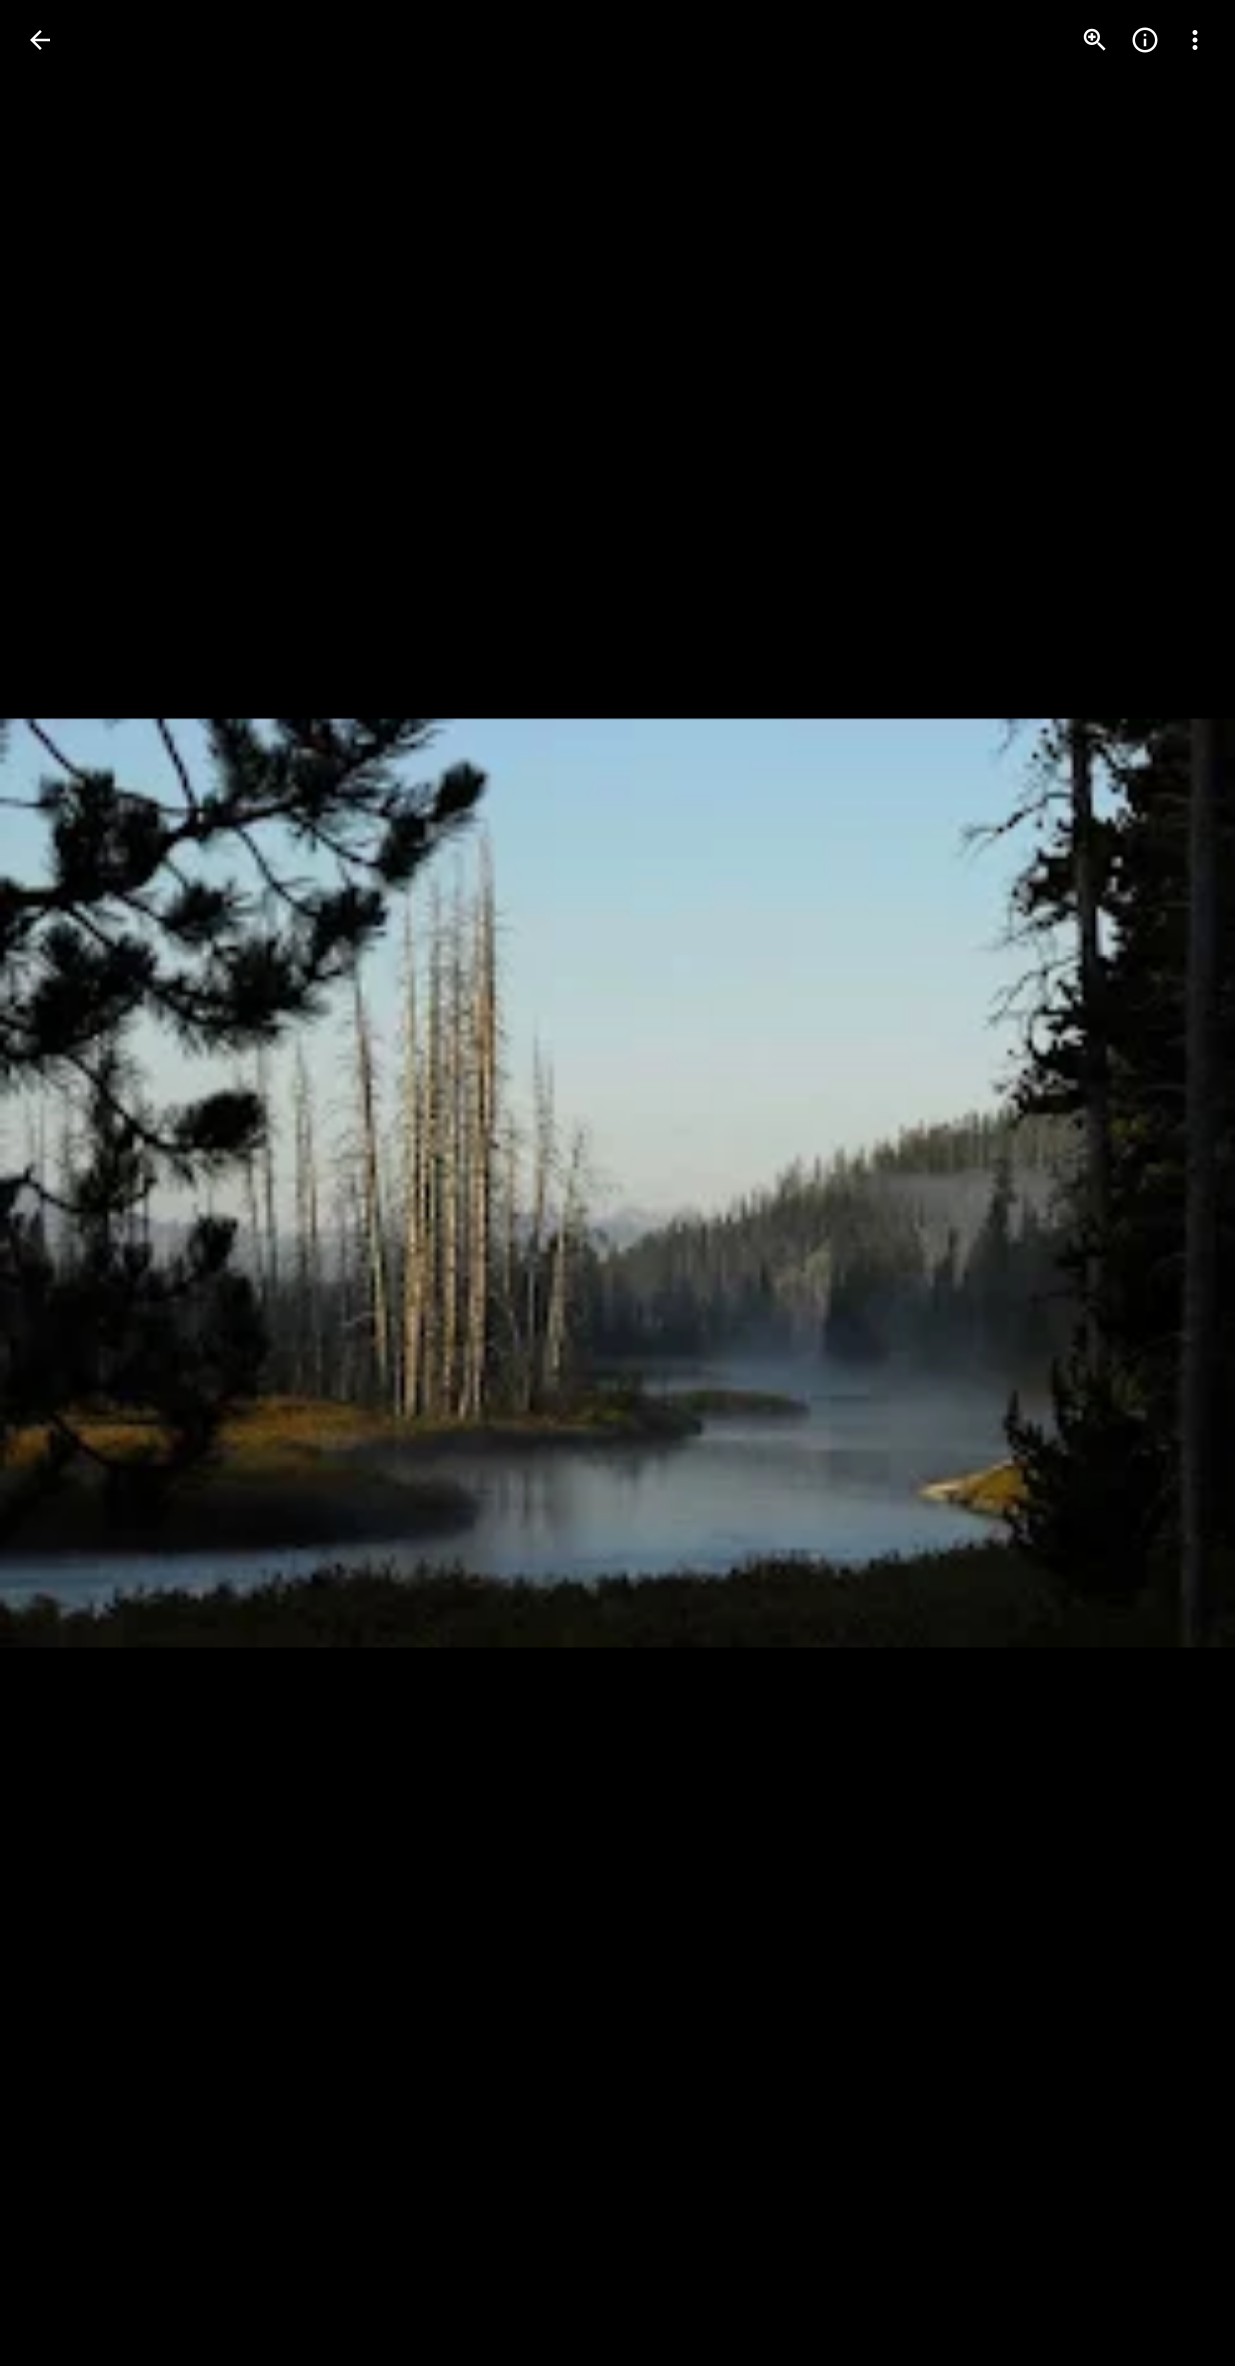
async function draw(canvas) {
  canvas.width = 1235
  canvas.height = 2366
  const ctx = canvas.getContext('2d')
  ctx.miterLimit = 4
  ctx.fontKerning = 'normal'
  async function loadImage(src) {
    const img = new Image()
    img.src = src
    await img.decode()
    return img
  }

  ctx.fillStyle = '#000'
  ctx.fillRect(0, 0, 1235, 2366)
  ctx.drawImage(await loadImage('image0.png'), 30, 30, 20, 20)
  ctx.drawImage(await loadImage('image1.png'), 1083, 28, 23, 23)
  ctx.drawImage(await loadImage('image2.png'), 1132, 27, 26, 26)
  ctx.drawImage(await loadImage('image3.png'), 1192, 30, 6, 20)
  ctx.drawImage(await loadImage('image4.png'), 0, 718, 1235, 930)
}

draw(document.querySelector('canvas'))
